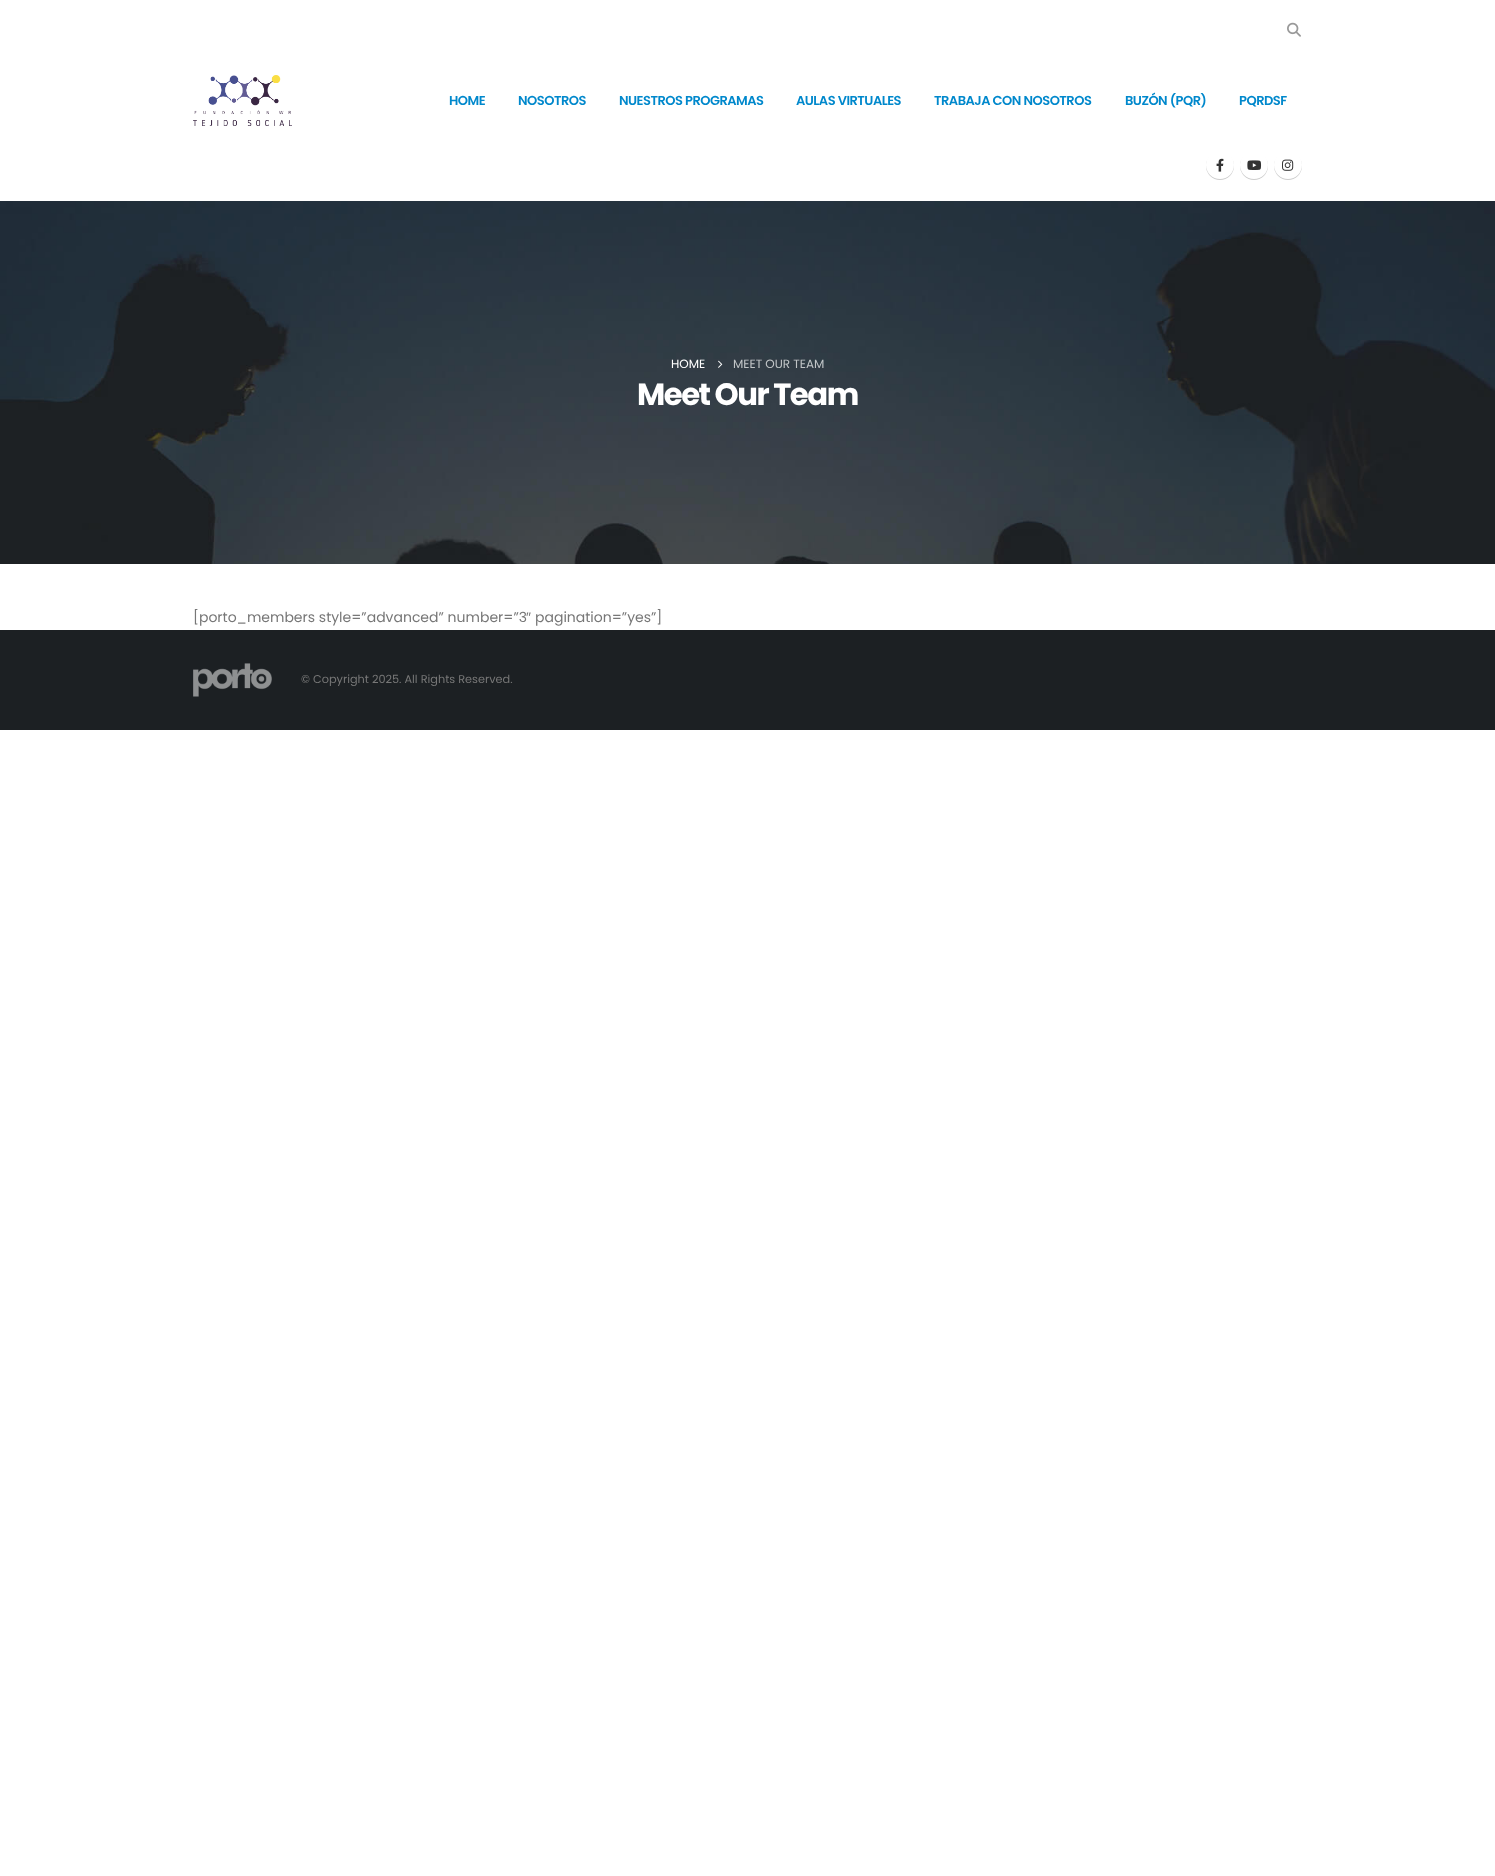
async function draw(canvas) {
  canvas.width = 1495
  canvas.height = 1876
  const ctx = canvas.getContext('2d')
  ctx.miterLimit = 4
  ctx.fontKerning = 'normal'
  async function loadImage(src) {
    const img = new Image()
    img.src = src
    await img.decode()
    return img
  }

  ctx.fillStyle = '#fff'
  ctx.fillRect(0, 0, 1495, 1876)
  ctx.drawImage(await loadImage('image0.png'), 193, 75, 99, 51)
  ctx.drawImage(await loadImage('image1.png'), 1287, 22, 14, 15)
  ctx.letterSpacing = '-0.5px'
  ctx.font = '600 13px Poppins'
  ctx.fillStyle = '#08c'
  ctx.fillText('HOME', 449, 105)
  ctx.fillText('NOSOTROS', 518, 105)
  ctx.fillText('NUESTROS PROGRAMAS', 619, 105)
  ctx.fillText('AULAS VIRTUALES', 796, 105)
  ctx.fillText('TRABAJA CON NOSOTROS', 934, 105)
  ctx.fillText('BUZÓN (PQR)', 1125, 105)
  ctx.fillText('PQRDSF', 1239, 105)
  ctx.fillStyle = '#00000033'
  ctx.filter = 'blur(0.5px)'
  ctx.beginPath()
  ctx.roundRect(1206, 152, 28, 28, 14)
  ctx.fill()
  ctx.filter = 'none'
  ctx.fillStyle = '#fff'
  ctx.beginPath()
  ctx.arc(1220, 165, 14, 0, 2 * Math.PI)
  ctx.fill()
  ctx.drawImage(await loadImage('image2.png'), 1216, 158, 8, 14)
  ctx.fillStyle = '#00000033'
  ctx.filter = 'blur(0.5px)'
  ctx.beginPath()
  ctx.roundRect(1240, 152, 28, 28, 14)
  ctx.fill()
  ctx.filter = 'none'
  ctx.fillStyle = '#fff'
  ctx.beginPath()
  ctx.arc(1254, 165, 14, 0, 2 * Math.PI)
  ctx.fill()
  ctx.drawImage(await loadImage('image3.png'), 1247, 160, 15, 10)
  ctx.fillStyle = '#00000033'
  ctx.filter = 'blur(0.5px)'
  ctx.beginPath()
  ctx.roundRect(1274, 152, 28, 28, 14)
  ctx.fill()
  ctx.filter = 'none'
  ctx.fillStyle = '#fff'
  ctx.beginPath()
  ctx.arc(1288, 165, 14, 0, 2 * Math.PI)
  ctx.fill()
  ctx.drawImage(await loadImage('image4.png'), 1282, 159, 12, 12)
  ctx.drawImage(await loadImage('image5.png'), 0, 201, 1495, 363)
  ctx.letterSpacing = '0px'
  ctx.font = '12px Poppins'
  ctx.fillText('HOME', 671, 368)
  ctx.drawImage(await loadImage('image6.png'), 718, 360, 5, 8)
  ctx.fillStyle = '#c1c5c7'
  ctx.fillText('MEET OUR TEAM', 733, 368)
  ctx.letterSpacing = '-1.5px'
  ctx.font = 'bold 30.75px Poppins'
  ctx.fillStyle = '#fff'
  ctx.fillText('Meet Our Team', 637, 405)
  ctx.letterSpacing = '0px'
  ctx.font = '14px Poppins'
  ctx.fillStyle = '#777'
  ctx.fillText('[porto_members style=”advanced” number=”3', 193, 622)
  ctx.font = '14px Liberation Sans'
  ctx.fillText('″', 526, 622)
  ctx.font = '14px Poppins'
  ctx.fillText('pagination=”yes”]', 535, 622)
  ctx.fillStyle = '#1c2023'
  ctx.fillRect(0, 630, 1495, 100)
  ctx.drawImage(await loadImage('image7.png'), 193, 663, 79, 34)
  ctx.font = '11.3px Poppins'
  ctx.fillStyle = '#777'
  ctx.fillText('© Copyright 2025. All Rights Reserved.', 301, 683)
}

draw(document.querySelector('canvas'))
